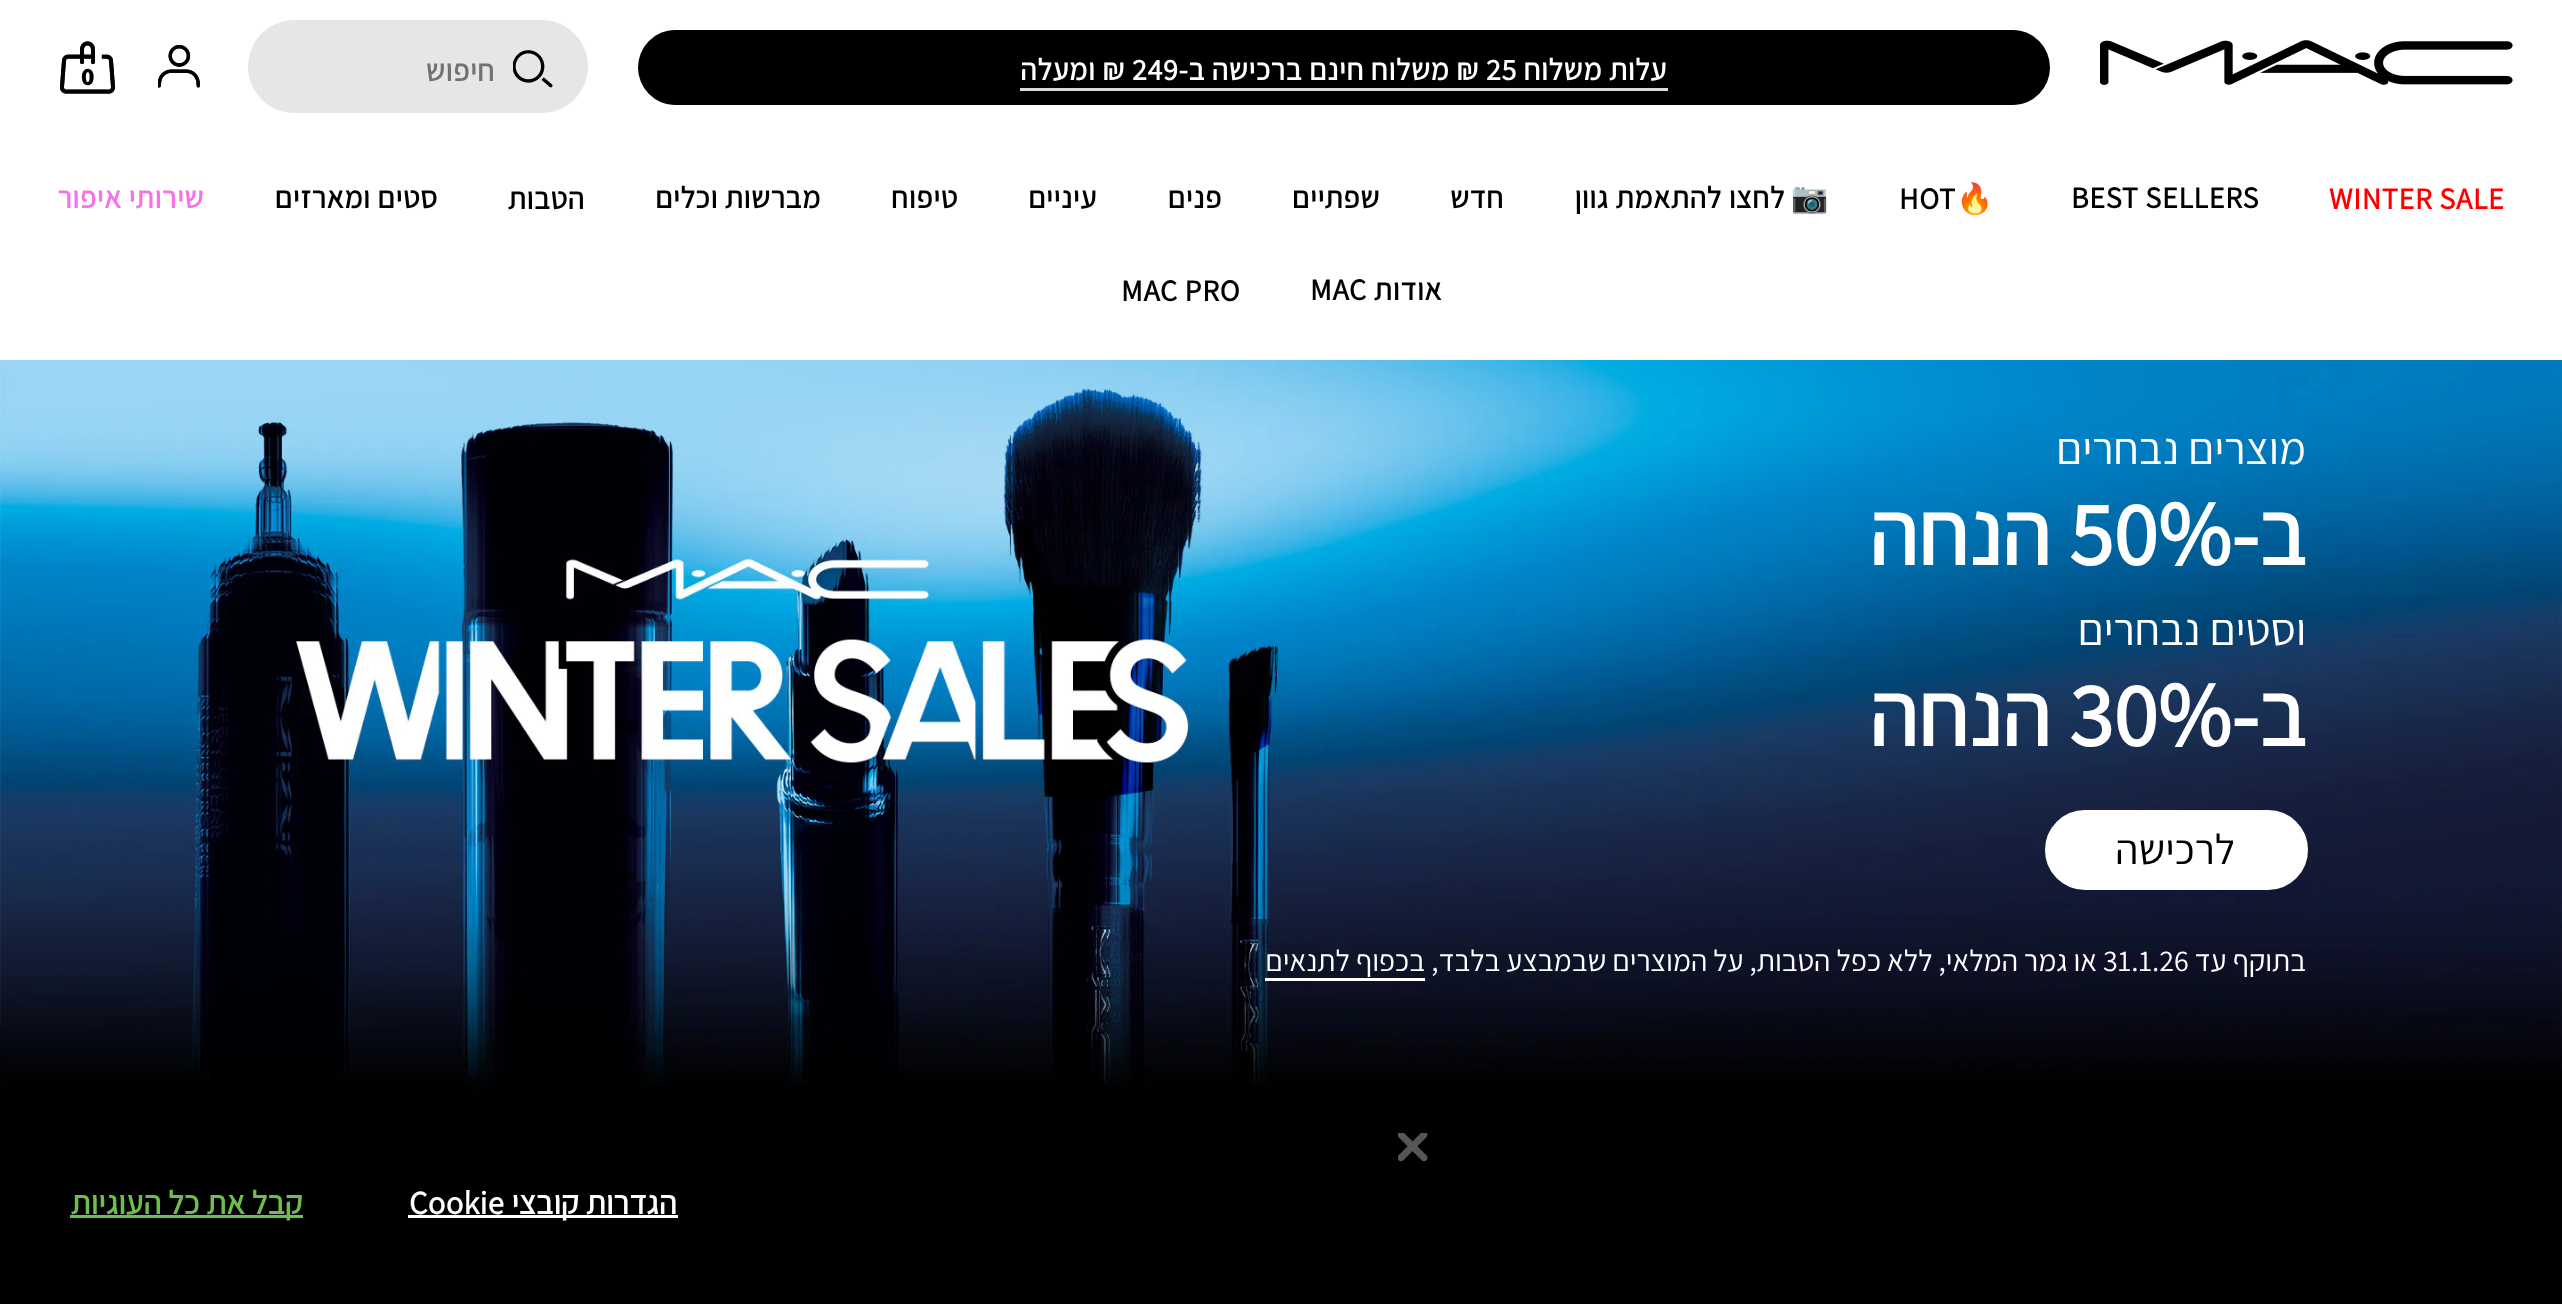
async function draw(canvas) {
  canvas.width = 2562
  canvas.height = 1304
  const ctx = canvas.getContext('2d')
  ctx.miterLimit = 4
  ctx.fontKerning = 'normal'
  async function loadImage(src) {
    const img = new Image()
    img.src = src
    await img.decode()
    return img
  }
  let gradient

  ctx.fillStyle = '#fff'
  ctx.fillRect(0, 0, 2562, 1304)
  ctx.drawImage(await loadImage('image0.png'), 2100, 40, 413, 45)
  ctx.fillStyle = '#000'
  ctx.beginPath()
  ctx.roundRect(638, 30, 1412, 75, 37.5)
  ctx.fill()
  gradient = ctx.createLinearGradient(2000, 68, 2050, 68)
  gradient.addColorStop(0, '#000000e6')
  gradient.addColorStop(1, '#0000001a')
  ctx.fillStyle = gradient
  ctx.beginPath()
  ctx.roundRect(2000, 30, 50, 75, [0, 37.5, 37.5, 0])
  ctx.fill()
  ctx.letterSpacing = '0.75px'
  ctx.direction = 'rtl'
  ctx.font = 'bold 30px Assistant'
  ctx.fillStyle = '#fff'
  ctx.fillText('עלות משלוח', 1667, 80)
  ctx.direction = 'ltr'
  ctx.fillText('25', 1486, 80)
  ctx.direction = 'rtl'
  ctx.fillText('₪ משלוח חינם ברכישה ב-', 1479, 80)
  ctx.direction = 'ltr'
  ctx.fillText('249', 1132, 80)
  ctx.fillStyle = '#dbdbdb'
  ctx.fillRect(1020, 88, 648, 3)
  ctx.direction = 'rtl'
  ctx.fillStyle = '#fff'
  ctx.fillText('₪ ומעלה', 1125, 80)
  gradient = ctx.createLinearGradient(688, 68, 638, 68)
  gradient.addColorStop(0, '#000000e6')
  gradient.addColorStop(1, '#0000001a')
  ctx.fillStyle = gradient
  ctx.beginPath()
  ctx.roundRect(638, 30, 50, 75, [37.5, 0, 0, 37.5])
  ctx.fill()
  ctx.fillStyle = '#e6e6e6'
  ctx.beginPath()
  ctx.roundRect(248, 20, 340, 93, 46.5)
  ctx.fill()
  ctx.drawImage(await loadImage('image1.png'), 513, 50, 40, 38)
  ctx.fillStyle = '#727272'
  ctx.fillText('חיפוש', 495, 81)
  ctx.drawImage(await loadImage('image2.png'), 158, 45, 42, 43)
  ctx.drawImage(await loadImage('image3.png'), 158, 45, 42, 43)
  ctx.drawImage(await loadImage('image4.png'), 60, 41, 55, 53)
  ctx.drawImage(await loadImage('image5.png'), 60, 41, 55, 53)
  ctx.letterSpacing = '0px'
  ctx.direction = 'ltr'
  ctx.font = '800 25px Assistant'
  ctx.fillStyle = '#000'
  ctx.fillText('0', 81, 85)
  ctx.letterSpacing = '0.75px'
  ctx.font = 'bold 30px Assistant'
  ctx.fillStyle = '#f00'
  ctx.fillText('WINTER SALE', 2329, 209)
  ctx.fillStyle = '#000'
  ctx.fillText('BEST SELLERS', 2071, 208)
  ctx.font = 'bold 30px Noto Color Emoji'
  ctx.fillText('🔥', 1956, 209)
  ctx.font = 'bold 30px Assistant'
  ctx.fillText('HOT', 1899, 209)
  ctx.direction = 'rtl'
  ctx.font = 'bold 30px Noto Color Emoji'
  ctx.fillText('📷', 1829, 208)
  ctx.font = 'bold 30px Assistant'
  ctx.fillText('לחצו להתאמת גוון', 1785, 208)
  ctx.fillText('חדש', 1504, 208)
  ctx.fillText('שפתיים', 1380, 208)
  ctx.fillText('פנים', 1222, 208)
  ctx.fillText('עיניים', 1097, 208)
  ctx.fillText('טיפוח', 958, 208)
  ctx.fillText('מברשות וכלים', 821, 208)
  ctx.fillText('הטבות', 585, 209)
  ctx.fillText('סטים ומארזים', 438, 208)
  ctx.fillStyle = '#f971e5'
  ctx.fillText('שירותי איפור', 204, 208)
  ctx.fillStyle = '#000'
  ctx.fillText('אודות', 1442, 300)
  ctx.direction = 'ltr'
  ctx.fillText('MAC', 1310, 300)
  ctx.fillText('MAC PRO', 1121, 301)
  ctx.drawImage(await loadImage('image6.png'), 0, 360, 2562, 730)
  ctx.letterSpacing = '0px'
  ctx.direction = 'rtl'
  ctx.font = '45px Assistant'
  ctx.fillStyle = '#fff'
  ctx.fillText('מוצרים נבחרים', 2306, 464)
  ctx.font = 'bold 90px Assistant'
  ctx.fillText('ב-', 2306, 565)
  ctx.direction = 'ltr'
  ctx.fillText('50%', 2069, 565)
  ctx.direction = 'rtl'
  ctx.fillText('הנחה', 2051, 565)
  ctx.font = '45px Assistant'
  ctx.fillText('וסטים נבחרים', 2306, 645)
  ctx.font = 'bold 90px Assistant'
  ctx.fillText('ב-', 2306, 746)
  ctx.direction = 'ltr'
  ctx.fillText('30%', 2069, 746)
  ctx.direction = 'rtl'
  ctx.fillText('הנחה', 2051, 746)
  ctx.beginPath()
  ctx.roundRect(2046.5, 811.5, 260, 77, 38.5)
  ctx.fill()
  ctx.strokeStyle = '#fff'
  ctx.lineWidth = 3
  ctx.stroke()
  ctx.font = '42.5px Assistant'
  ctx.fillStyle = '#000'
  ctx.fillText('לרכישה', 2235, 864)
  ctx.font = '30px Assistant'
  ctx.fillStyle = '#fff'
  ctx.fillText('בתוקף עד', 2306, 971)
  ctx.direction = 'ltr'
  ctx.fillText('31.1.26', 2103, 971)
  ctx.direction = 'rtl'
  ctx.fillText('או גמר המלאי, ללא כפל הטבות, על המוצרים שבמבצע בלבד,', 2097, 971)
  ctx.fillText('בכפוף לתנאים', 1425, 971)
  ctx.fillRect(1265, 978, 160, 3)
  ctx.fillStyle = '#010101'
  ctx.fillRect(0, 1090, 2562, 18)
  ctx.fillStyle = '#000'
  ctx.fillRect(0, 1108, 2562, 196)
  ctx.drawImage(await loadImage('image7.png'), 1398, 1133, 30, 29)
  ctx.fillStyle = '#fff'
  ctx.fillRect(408, 1215, 270, 3)
  ctx.letterSpacing = '0.3px'
  ctx.font = 'bold 32.5px Assistant'
  ctx.fillText('הגדרות קובצי', 677, 1214)
  ctx.direction = 'ltr'
  ctx.fillText('Cookie', 409, 1214)
  ctx.fillStyle = '#6cc04a'
  ctx.fillRect(70, 1215, 233, 3)
  ctx.direction = 'rtl'
  ctx.fillText('קבל את כל העוגיות', 303, 1214)
}

draw(document.querySelector('canvas'))
